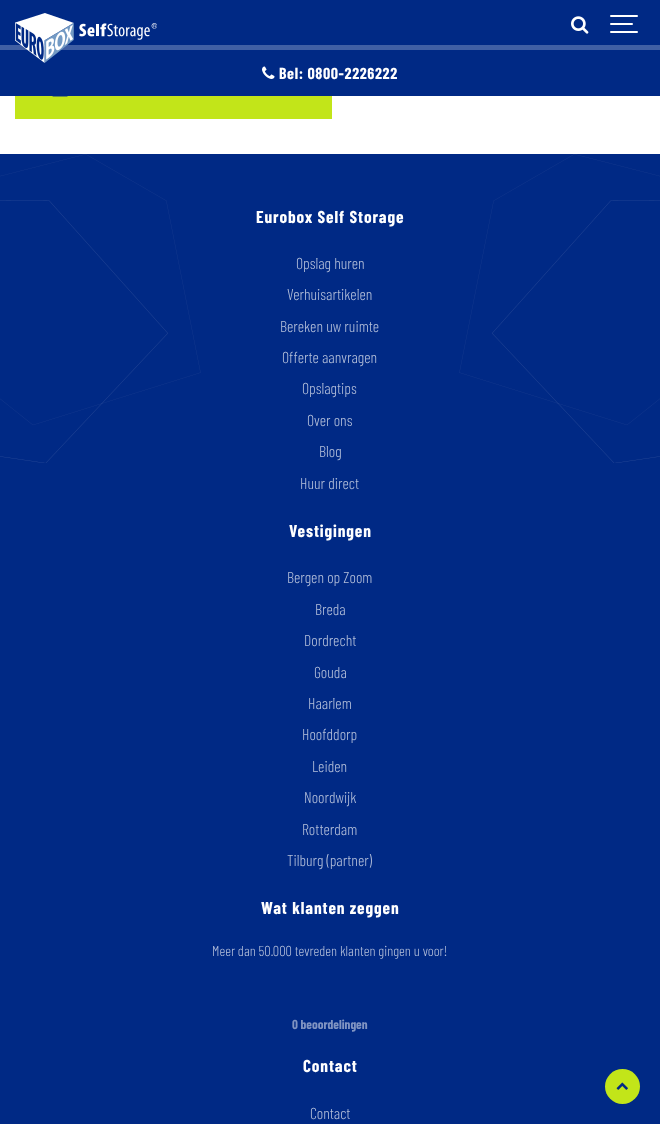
async function draw(canvas) {
  canvas.width = 660
  canvas.height = 1124
  const ctx = canvas.getContext('2d')
  ctx.miterLimit = 4
  ctx.fontKerning = 'normal'
  async function loadImage(src) {
    const img = new Image()
    img.src = src
    await img.decode()
    return img
  }

  ctx.fillStyle = '#fff'
  ctx.fillRect(0, 0, 660, 1124)
  ctx.fillStyle = '#002985'
  ctx.fillRect(0, 0, 660, 45)
  ctx.fillStyle = '#405fa4'
  ctx.fillRect(0, 45, 660, 5)
  ctx.fillStyle = '#002985'
  ctx.fillRect(0, 50, 660, 46)
  ctx.drawImage(await loadImage('image0.png'), 15, 13, 142, 50)
  ctx.drawImage(await loadImage('image1.png'), 571, 16, 18, 18)
  ctx.fillStyle = '#fff'
  ctx.beginPath()
  ctx.roundRect(610, 23, 23, 2, 1)
  ctx.fill()
  ctx.beginPath()
  ctx.roundRect(610, 15, 28, 2, 1)
  ctx.fill()
  ctx.beginPath()
  ctx.roundRect(610, 31, 28, 2, 1)
  ctx.fill()
  ctx.drawImage(await loadImage('image2.png'), 262, 66, 13, 13)
  ctx.letterSpacing = '0.6px'
  ctx.font = 'bold 16px Barlow Condensed'
  ctx.fillText('Bel: 0800-2226222', 279, 79)
  ctx.fillStyle = '#c2e519'
  ctx.fillRect(15, 96, 317, 23)
  ctx.drawImage(await loadImage('image3.png'), 52, 96, 16, 1)
  ctx.fillStyle = '#002985'
  ctx.fillRect(0, 154, 660, 970)
  ctx.drawImage(await loadImage('image4.png'), 0, 154, 660, 309)
  ctx.letterSpacing = '0.9px'
  ctx.font = 'bold 17.25px Barlow Condensed'
  ctx.fillStyle = '#fff'
  ctx.fillText('Eurobox Self Storage', 256, 223)
  ctx.letterSpacing = '0px'
  ctx.font = '300 15.75px Barlow Condensed'
  ctx.fillStyle = '#b3bfda'
  ctx.fillText('Opslag huren', 296, 269)
  ctx.fillText('Verhuisartikelen', 287, 300)
  ctx.fillText('Bereken uw ruimte', 280, 332)
  ctx.fillText('Offerte aanvragen', 282, 363)
  ctx.fillText('Opslagtips', 302, 394)
  ctx.fillText('Over ons', 307, 426)
  ctx.fillText('Blog', 319, 457)
  ctx.fillText('Huur direct', 300, 489)
  ctx.letterSpacing = '0.9px'
  ctx.font = 'bold 17.25px Barlow Condensed'
  ctx.fillStyle = '#fff'
  ctx.fillText('Vestigingen', 289, 537)
  ctx.letterSpacing = '0px'
  ctx.font = '300 15.75px Barlow Condensed'
  ctx.fillStyle = '#b3bfda'
  ctx.fillText('Bergen op Zoom', 287, 583)
  ctx.fillText('Breda', 315, 615)
  ctx.fillText('Dordrecht', 304, 646)
  ctx.fillText('Gouda', 314, 678)
  ctx.fillText('Haarlem', 308, 709)
  ctx.fillText('Hoofddorp', 302, 740)
  ctx.fillText('Leiden', 312, 772)
  ctx.fillText('Noordwijk', 304, 803)
  ctx.fillText('Rotterdam', 302, 835)
  ctx.fillText('Tilburg (partner)', 287, 866)
  ctx.letterSpacing = '0.9px'
  ctx.font = 'bold 17.25px Barlow Condensed'
  ctx.fillStyle = '#fff'
  ctx.fillText('Wat klanten zeggen', 261, 914)
  ctx.letterSpacing = '0px'
  ctx.font = '300 14.4px Barlow Condensed'
  ctx.fillStyle = '#b3bfda'
  ctx.fillText('Meer dan 50.000 tevreden klanten gingen u voor!', 212, 956)
  ctx.font = 'bold 13px Barlow Condensed'
  ctx.fillStyle = '#8094c2'
  ctx.fillText('0 beoordelingen', 292, 1029)
  ctx.letterSpacing = '0.9px'
  ctx.font = 'bold 17.25px Barlow Condensed'
  ctx.fillStyle = '#fff'
  ctx.fillText('Contact', 303, 1072)
  ctx.letterSpacing = '0px'
  ctx.font = '300 15.75px Barlow Condensed'
  ctx.fillStyle = '#b3bfda'
  ctx.fillText('Contact', 310, 1119)
  ctx.fillStyle = '#c2e519'
  ctx.beginPath()
  ctx.arc(622.5, 1086.5, 17.5, 0, 2 * Math.PI)
  ctx.fill()
  ctx.drawImage(await loadImage('image5.png'), 616, 1082, 12, 8)
}

draw(document.querySelector('canvas'))
